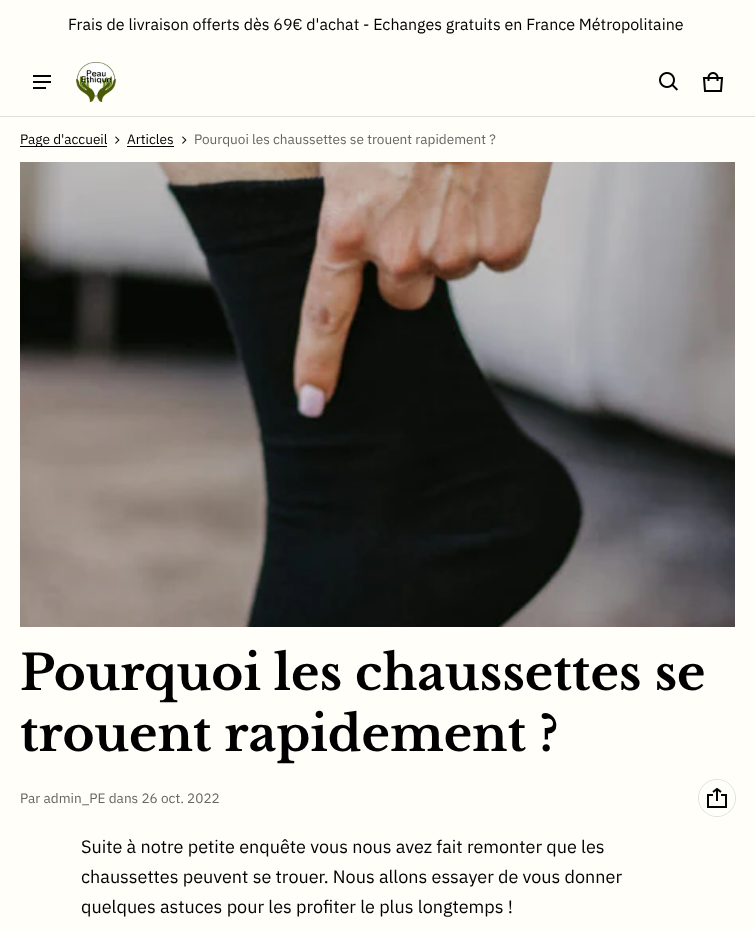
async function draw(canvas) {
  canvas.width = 755
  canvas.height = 930
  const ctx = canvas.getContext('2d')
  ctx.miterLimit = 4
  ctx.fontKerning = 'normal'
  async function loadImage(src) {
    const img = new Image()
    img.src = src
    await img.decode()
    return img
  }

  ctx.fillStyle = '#fffef9'
  ctx.fillRect(0, 0, 755, 930)
  ctx.font = '16px IBM Plex Sans'
  ctx.fillStyle = '#000'
  ctx.fillText('Frais de livraison offerts dès 69€ d\'achat - Echanges gratuits en France Métropolitaine', 68, 30)
  ctx.fillStyle = '#e0e0db'
  ctx.fillRect(0, 116, 755, 1)
  ctx.fillStyle = '#000'
  ctx.fillRect(33, 75, 18, 2)
  ctx.fillRect(33, 81, 18, 2)
  ctx.fillRect(33, 87, 13, 2)
  ctx.drawImage(await loadImage('image0.png'), 76, 62, 40, 40)
  ctx.drawImage(await loadImage('image1.png'), 659, 72, 19, 19)
  ctx.drawImage(await loadImage('image2.png'), 702, 72, 22, 20)
  ctx.fillRect(20, 146, 87, 1)
  ctx.font = '13.6px IBM Plex Sans'
  ctx.fillText('Page d\'accueil', 20, 144)
  ctx.drawImage(await loadImage('image3.png'), 115, 136, 5, 8)
  ctx.fillText('Articles', 127, 144)
  ctx.fillRect(127, 146, 47, 1)
  ctx.drawImage(await loadImage('image3.png'), 182, 136, 5, 8)
  ctx.fillStyle = '#666664'
  ctx.fillText('Pourquoi les chaussettes se trouent rapidement ?', 194, 144)
  ctx.drawImage(await loadImage('image4.png'), 20, 162, 715, 465)
  ctx.font = 'bold 48.6px Libre Baskerville'
  ctx.fillStyle = '#000'
  ctx.fillText('Pourquoi les chaussettes se', 20, 690)
  ctx.fillText('trouent rapidement ?', 20, 751)
  ctx.font = '13.6px IBM Plex Sans'
  ctx.fillStyle = '#666664'
  ctx.fillText('Par admin_PE dans 26 oct. 2022', 20, 803)
  ctx.beginPath()
  ctx.arc(717, 798, 18.5, 0, 2 * Math.PI)
  ctx.strokeStyle = '#e0e0db'
  ctx.stroke()
  ctx.fillStyle = '#fffffa'
  ctx.beginPath()
  ctx.arc(717, 798, 18, 0, 2 * Math.PI)
  ctx.fill()
  ctx.drawImage(await loadImage('image5.png'), 707, 787, 20, 21)
  ctx.font = '18px IBM Plex Sans'
  ctx.fillStyle = '#000'
  ctx.fillText('Suite à notre petite enquête vous nous avez fait remonter que les', 81, 853)
  ctx.fillText('chaussettes peuvent se trouer. Nous allons essayer de vous donner', 81, 883)
  ctx.fillText('quelques astuces pour les profiter le plus longtemps !', 81, 913)
}

draw(document.querySelector('canvas'))
